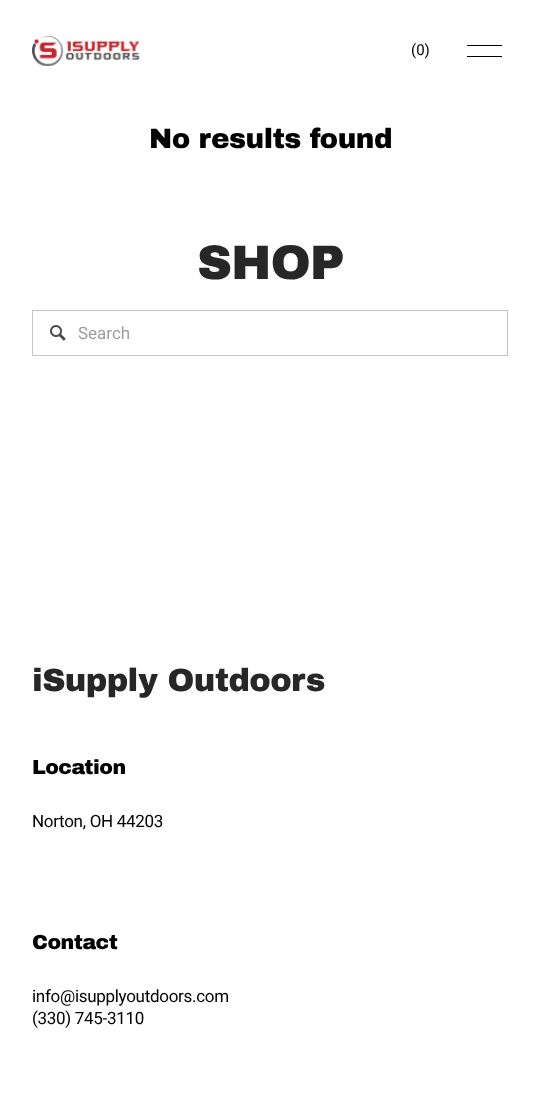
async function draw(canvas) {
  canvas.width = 540
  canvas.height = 1095
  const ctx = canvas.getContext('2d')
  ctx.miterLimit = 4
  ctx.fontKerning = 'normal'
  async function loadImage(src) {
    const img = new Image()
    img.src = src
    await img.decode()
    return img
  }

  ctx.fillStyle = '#fff'
  ctx.fillRect(0, 0, 540, 1095)
  ctx.drawImage(await loadImage('image0.png'), 32, 36, 108, 30)
  ctx.font = '15px Roboto'
  ctx.fillStyle = '#000'
  ctx.fillText('(0)', 411, 55)
  ctx.fillRect(467, 45, 35, 1)
  ctx.fillRect(467, 56, 35, 1)
  ctx.letterSpacing = '-0.5px'
  ctx.font = '900 27.9px Archivo Black'
  ctx.fillText('No results found', 149, 148)
  ctx.letterSpacing = '-1px'
  ctx.font = '900 48.5px Archivo Black'
  ctx.fillStyle = '#272727'
  ctx.fillText('SHOP', 197, 279)
  ctx.drawImage(await loadImage('image1.png'), 50, 325, 16, 16)
  ctx.strokeStyle = '#c4c4c4'
  ctx.strokeRect(32.5, 310.5, 475, 45)
  ctx.letterSpacing = '0px'
  ctx.font = '17px Roboto'
  ctx.fillStyle = '#9e9e9e'
  ctx.fillText('Search', 78, 339)
  ctx.letterSpacing = '-0.6px'
  ctx.font = '900 32.25px Archivo Black'
  ctx.fillStyle = '#272727'
  ctx.fillText('iSupply Outdoors', 32, 691)
  ctx.letterSpacing = '-0.5px'
  ctx.font = '900 20.5px Archivo Black'
  ctx.fillStyle = '#000'
  ctx.fillText('Location', 32, 774)
  ctx.letterSpacing = '-0.3px'
  ctx.font = '17px Roboto'
  ctx.fillText('Norton, OH 44203', 32, 827)
  ctx.letterSpacing = '-0.5px'
  ctx.font = '900 20.5px Archivo Black'
  ctx.fillText('Contact', 32, 949)
  ctx.letterSpacing = '-0.3px'
  ctx.font = '17px Roboto'
  ctx.fillText('info@isupplyoutdoors.com', 32, 1002)
  ctx.fillText('(330) 745-3110', 32, 1024)
}

draw(document.querySelector('canvas'))
